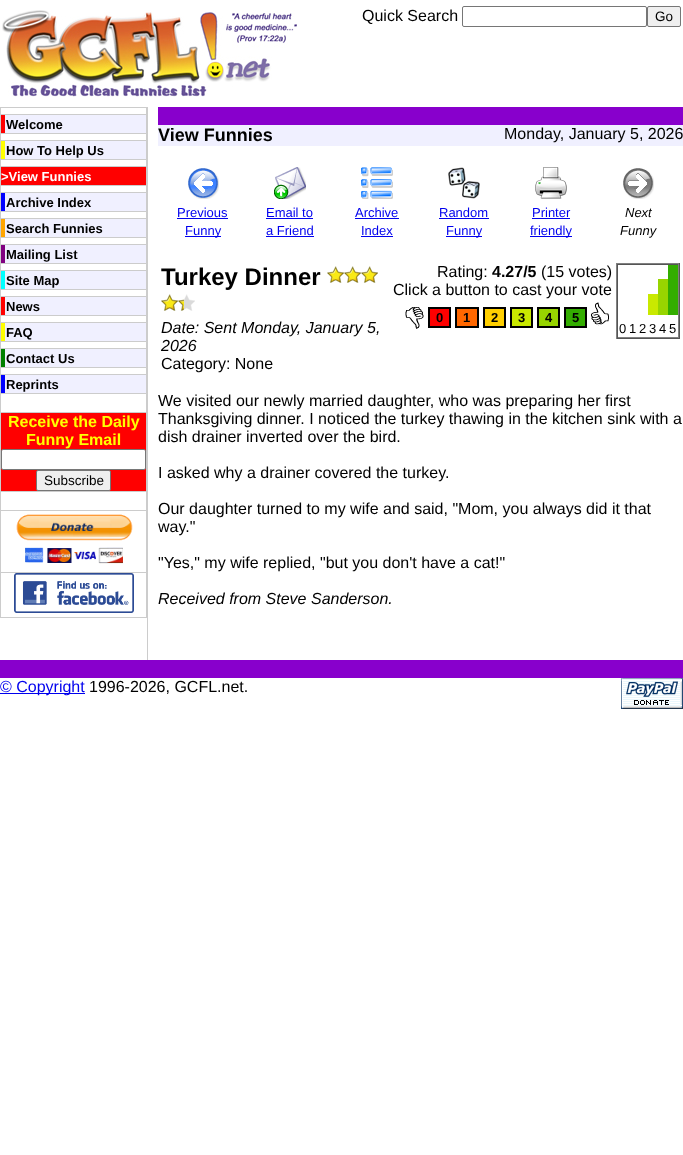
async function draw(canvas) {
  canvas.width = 683
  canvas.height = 1155
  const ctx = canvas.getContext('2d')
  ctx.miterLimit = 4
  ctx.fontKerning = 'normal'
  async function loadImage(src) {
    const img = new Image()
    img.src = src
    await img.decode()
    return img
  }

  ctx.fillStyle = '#fff'
  ctx.fillRect(0, 0, 683, 1155)
  ctx.drawImage(await loadImage('image0.png'), 2, 10, 295, 87)
  ctx.font = '16px Liberation Sans'
  ctx.fillStyle = '#000'
  ctx.fillText('Quick Search', 362, 21)
  ctx.beginPath()
  ctx.roundRect(462.5, 6.5, 184, 20, 1.5)
  ctx.strokeStyle = '#767676'
  ctx.stroke()
  ctx.fillStyle = '#efefef'
  ctx.beginPath()
  ctx.roundRect(647.5, 6.5, 33, 20, 1.5)
  ctx.fill()
  ctx.stroke()
  ctx.font = '13.5px Liberation Sans'
  ctx.fillStyle = '#000'
  ctx.fillText('Go', 655, 21)
  ctx.fillStyle = '#ccc'
  ctx.fillRect(0, 107, 147, 511)
  ctx.fillStyle = '#fff'
  ctx.fillRect(1, 108, 145, 6)
  ctx.fillStyle = '#f0f0ff'
  ctx.fillRect(5, 115, 141, 18)
  ctx.fillStyle = '#f00'
  ctx.fillRect(1, 115, 4, 18)
  ctx.font = 'bold 13px Liberation Sans'
  ctx.fillStyle = '#000'
  ctx.fillText('Welcome', 6, 129)
  ctx.fillStyle = '#fff'
  ctx.fillRect(1, 134, 145, 6)
  ctx.fillStyle = '#f0f0ff'
  ctx.fillRect(5, 141, 141, 18)
  ctx.fillStyle = '#ff0'
  ctx.fillRect(1, 141, 4, 18)
  ctx.fillStyle = '#000'
  ctx.fillText('How To Help Us', 6, 155)
  ctx.fillStyle = '#fff'
  ctx.fillRect(1, 160, 145, 6)
  ctx.fillStyle = '#f00'
  ctx.fillRect(1, 167, 145, 18)
  ctx.fillStyle = '#fff'
  ctx.fillText('>View Funnies', 1, 181)
  ctx.fillRect(1, 186, 145, 6)
  ctx.fillStyle = '#f0f0ff'
  ctx.fillRect(5, 193, 141, 18)
  ctx.fillStyle = '#00f'
  ctx.fillRect(1, 193, 4, 18)
  ctx.fillStyle = '#000'
  ctx.fillText('Archive Index', 6, 207)
  ctx.fillStyle = '#fff'
  ctx.fillRect(1, 212, 145, 6)
  ctx.fillStyle = '#f0f0ff'
  ctx.fillRect(5, 219, 141, 18)
  ctx.fillStyle = '#ffa500'
  ctx.fillRect(1, 219, 4, 18)
  ctx.fillStyle = '#000'
  ctx.fillText('Search Funnies', 6, 233)
  ctx.fillStyle = '#fff'
  ctx.fillRect(1, 238, 145, 6)
  ctx.fillStyle = '#f0f0ff'
  ctx.fillRect(5, 245, 141, 18)
  ctx.fillStyle = '#800080'
  ctx.fillRect(1, 245, 4, 18)
  ctx.fillStyle = '#000'
  ctx.fillText('Mailing List', 6, 259)
  ctx.fillStyle = '#fff'
  ctx.fillRect(1, 264, 145, 6)
  ctx.fillStyle = '#f0f0ff'
  ctx.fillRect(5, 271, 141, 18)
  ctx.fillStyle = '#0ff'
  ctx.fillRect(1, 271, 4, 18)
  ctx.fillStyle = '#000'
  ctx.fillText('Site Map', 6, 285)
  ctx.fillStyle = '#fff'
  ctx.fillRect(1, 290, 145, 6)
  ctx.fillStyle = '#f0f0ff'
  ctx.fillRect(5, 297, 141, 18)
  ctx.fillStyle = '#f00'
  ctx.fillRect(1, 297, 4, 18)
  ctx.fillStyle = '#000'
  ctx.fillText('News', 6, 311)
  ctx.fillStyle = '#fff'
  ctx.fillRect(1, 316, 145, 6)
  ctx.fillStyle = '#f0f0ff'
  ctx.fillRect(5, 323, 141, 18)
  ctx.fillStyle = '#ff0'
  ctx.fillRect(1, 323, 4, 18)
  ctx.fillStyle = '#000'
  ctx.fillText('FAQ', 6, 337)
  ctx.fillStyle = '#fff'
  ctx.fillRect(1, 342, 145, 6)
  ctx.fillStyle = '#f0f0ff'
  ctx.fillRect(5, 349, 141, 18)
  ctx.fillStyle = '#008000'
  ctx.fillRect(1, 349, 4, 18)
  ctx.fillStyle = '#000'
  ctx.fillText('Contact Us', 6, 363)
  ctx.fillStyle = '#fff'
  ctx.fillRect(1, 368, 145, 6)
  ctx.fillStyle = '#f0f0ff'
  ctx.fillRect(5, 375, 141, 18)
  ctx.fillStyle = '#00f'
  ctx.fillRect(1, 375, 4, 18)
  ctx.fillStyle = '#000'
  ctx.fillText('Reprints', 6, 389)
  ctx.fillStyle = '#fff'
  ctx.fillRect(1, 394, 145, 18)
  ctx.fillStyle = '#f00'
  ctx.fillRect(1, 413, 145, 78)
  ctx.font = 'bold 16px Liberation Sans'
  ctx.fillStyle = '#ff0'
  ctx.fillText('Receive the Daily', 8, 427)
  ctx.fillText('Funny Email', 26, 445)
  ctx.fillStyle = '#fff'
  ctx.beginPath()
  ctx.roundRect(1.5, 449.5, 144, 20, 1.5)
  ctx.fill()
  ctx.stroke()
  ctx.fillStyle = '#efefef'
  ctx.beginPath()
  ctx.roundRect(36.5, 470.5, 74, 20, 1.5)
  ctx.fill()
  ctx.stroke()
  ctx.font = '13.5px Liberation Sans'
  ctx.fillStyle = '#000'
  ctx.fillText('Subscribe', 44, 485)
  ctx.fillStyle = '#fff'
  ctx.fillRect(1, 492, 145, 18)
  ctx.fillRect(1, 511, 145, 61)
  ctx.drawImage(await loadImage('image1.png'), 16, 514, 117, 50)
  ctx.fillRect(1, 573, 145, 44)
  ctx.drawImage(await loadImage('image2.png'), 14, 573, 120, 40)
  ctx.fillStyle = '#ccc'
  ctx.fillRect(147, 107, 1, 553)
  ctx.fillStyle = '#80c'
  ctx.fillRect(158, 107, 525, 18)
  ctx.fillStyle = '#f0f0ff'
  ctx.fillRect(158, 125, 525, 21)
  ctx.font = 'bold 18px Liberation Sans'
  ctx.fillStyle = '#000'
  ctx.fillText('View Funnies', 158, 141)
  ctx.font = '16px Liberation Sans'
  ctx.fillText('Monday, January 5, 2026', 504, 139)
  ctx.drawImage(await loadImage('image3.png'), 188, 168, 31, 31)
  ctx.font = '13px Liberation Sans'
  ctx.fillStyle = '#00e'
  ctx.fillText('Previous', 177, 217)
  ctx.fillRect(177, 218, 51, 1)
  ctx.fillRect(185, 236, 36, 1)
  ctx.fillText('Funny', 185, 235)
  ctx.drawImage(await loadImage('image4.png'), 274, 167, 32, 32)
  ctx.fillText('Email to', 266, 217)
  ctx.fillRect(266, 218, 47, 1)
  ctx.fillText('a Friend', 266, 235)
  ctx.fillRect(266, 236, 48, 1)
  ctx.drawImage(await loadImage('image5.png'), 361, 167, 32, 32)
  ctx.fillText('Archive', 355, 217)
  ctx.fillRect(355, 218, 44, 1)
  ctx.fillText('Index', 361, 235)
  ctx.fillRect(361, 236, 32, 1)
  ctx.drawImage(await loadImage('image6.png'), 448, 167, 32, 32)
  ctx.fillText('Random', 439, 217)
  ctx.fillRect(439, 218, 50, 1)
  ctx.fillRect(446, 236, 36, 1)
  ctx.fillText('Funny', 446, 235)
  ctx.drawImage(await loadImage('image7.png'), 535, 167, 32, 32)
  ctx.fillText('Printer', 532, 217)
  ctx.fillRect(532, 218, 38, 1)
  ctx.fillRect(530, 236, 42, 1)
  ctx.fillText('friendly', 530, 235)
  ctx.drawImage(await loadImage('image8.png'), 623, 168, 31, 31)
  ctx.font = 'italic 13px Liberation Sans'
  ctx.fillStyle = '#000'
  ctx.fillText('Next', 625, 217)
  ctx.fillText('Funny', 620, 235)
  ctx.font = 'bold 24px Liberation Sans'
  ctx.fillText('Turkey Dinner', 161, 285)
  ctx.drawImage(await loadImage('image9.png'), 327, 266, 17, 17)
  ctx.drawImage(await loadImage('image9.png'), 344, 266, 17, 17)
  ctx.drawImage(await loadImage('image9.png'), 361, 266, 17, 17)
  ctx.drawImage(await loadImage('image9.png'), 161, 294, 17, 17)
  ctx.drawImage(await loadImage('image10.png'), 178, 294, 17, 17)
  ctx.font = 'italic 16px Liberation Sans'
  ctx.fillText('Date: Sent Monday, January 5,', 161, 333)
  ctx.fillText('2026', 161, 351)
  ctx.font = '16px Liberation Sans'
  ctx.fillText('Category: None', 161, 369)
  ctx.fillText('Rating:', 437, 277)
  ctx.font = 'bold 16px Liberation Sans'
  ctx.fillText('4.27/5', 492, 277)
  ctx.font = '16px Liberation Sans'
  ctx.fillText('(15 votes)', 541, 277)
  ctx.fillText('Click a button to cast your vote', 393, 295)
  ctx.drawImage(await loadImage('image11.png'), 405, 307, 19, 22)
  ctx.fillStyle = '#f00'
  ctx.beginPath()
  ctx.rect(429, 308, 21, 19)
  ctx.fill()
  ctx.strokeStyle = '#000'
  ctx.lineWidth = 2
  ctx.stroke()
  ctx.font = 'bold 13px Liberation Sans'
  ctx.fillStyle = '#000'
  ctx.fillText('0', 436, 322)
  ctx.fillStyle = '#ff6700'
  ctx.beginPath()
  ctx.rect(456, 308, 22, 19)
  ctx.fill()
  ctx.stroke()
  ctx.fillStyle = '#000'
  ctx.fillText('1', 463, 322)
  ctx.fillStyle = '#ffcf00'
  ctx.beginPath()
  ctx.rect(484, 308, 21, 19)
  ctx.fill()
  ctx.stroke()
  ctx.fillStyle = '#000'
  ctx.fillText('2', 491, 322)
  ctx.fillStyle = '#c9e900'
  ctx.beginPath()
  ctx.rect(511, 308, 21, 19)
  ctx.fill()
  ctx.stroke()
  ctx.fillStyle = '#000'
  ctx.fillText('3', 518, 322)
  ctx.fillStyle = '#97d500'
  ctx.beginPath()
  ctx.rect(538, 308, 21, 19)
  ctx.fill()
  ctx.stroke()
  ctx.fillStyle = '#000'
  ctx.fillText('4', 545, 322)
  ctx.fillStyle = '#33ad00'
  ctx.beginPath()
  ctx.rect(565, 308, 21, 19)
  ctx.fill()
  ctx.stroke()
  ctx.fillStyle = '#000'
  ctx.fillText('5', 572, 322)
  ctx.drawImage(await loadImage('image12.png'), 591, 302, 18, 24)
  ctx.fillStyle = '#808080'
  ctx.fillRect(616, 263, 64, 1)
  ctx.fillStyle = '#555'
  ctx.fillRect(679, 263, 1, 76)
  ctx.fillRect(616, 338, 64, 1)
  ctx.fillStyle = '#808080'
  ctx.fillRect(616, 263, 1, 76)
  ctx.fillStyle = '#555'
  ctx.fillRect(617, 264, 62, 1)
  ctx.fillStyle = '#808080'
  ctx.fillRect(678, 264, 1, 74)
  ctx.fillRect(617, 337, 62, 1)
  ctx.fillStyle = '#555'
  ctx.fillRect(617, 264, 1, 74)
  ctx.fillStyle = '#c9e900'
  ctx.fillRect(648, 294, 10, 21)
  ctx.fillStyle = '#97d500'
  ctx.fillRect(658, 279, 10, 36)
  ctx.fillStyle = '#33ad00'
  ctx.fillRect(668, 265, 10, 50)
  ctx.font = '13px Liberation Sans'
  ctx.fillStyle = '#000'
  ctx.fillText('0', 619, 333)
  ctx.fillText('1', 629, 333)
  ctx.fillText('2', 639, 333)
  ctx.fillText('3', 649, 333)
  ctx.fillText('4', 659, 333)
  ctx.fillText('5', 669, 333)
  ctx.font = '16px Liberation Sans'
  ctx.fillText('We visited our newly married daughter, who was preparing her first', 158, 406)
  ctx.fillText('Thanksgiving dinner. I noticed the turkey thawing in the kitchen sink with a', 158, 424)
  ctx.fillText('dish drainer inverted over the bird.', 158, 442)
  ctx.fillText('I asked why a drainer covered the turkey.', 158, 478)
  ctx.fillText('Our daughter turned to my wife and said, "Mom, you always did it that', 158, 514)
  ctx.fillText('way."', 158, 532)
  ctx.fillText('"Yes," my wife replied, "but you don\'t have a cat!"', 158, 568)
  ctx.font = 'italic 16px Liberation Sans'
  ctx.fillText('Received from Steve Sanderson.', 158, 604)
  ctx.fillStyle = '#80c'
  ctx.fillRect(0, 660, 683, 18)
  ctx.fillStyle = '#00e'
  ctx.fillRect(0, 693, 85, 1)
  ctx.font = '16px Liberation Sans'
  ctx.fillText('© Copyright', 0, 692)
  ctx.fillStyle = '#000'
  ctx.fillText('1996-2026, GCFL.net.', 89, 692)
  ctx.drawImage(await loadImage('image13.png'), 621, 678, 62, 31)
}

draw(document.querySelector('canvas'))
